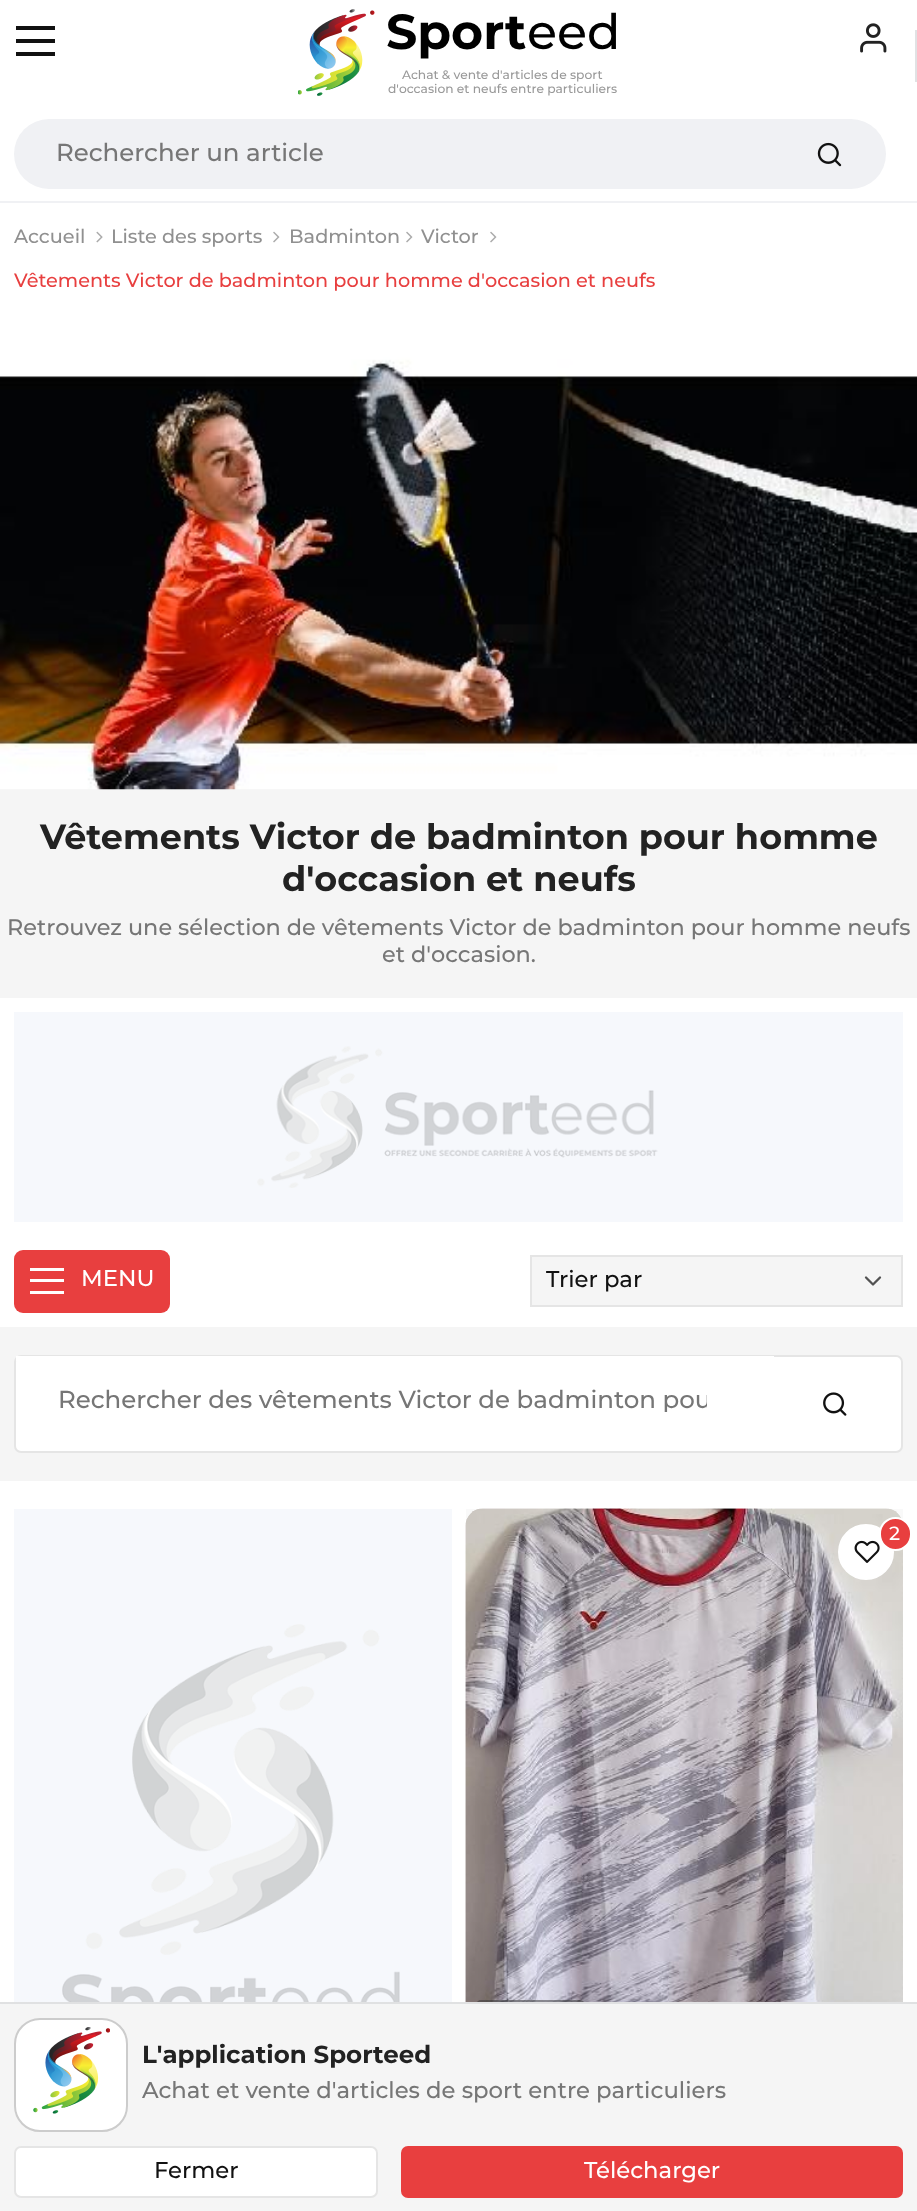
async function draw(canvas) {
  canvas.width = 917
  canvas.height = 2211
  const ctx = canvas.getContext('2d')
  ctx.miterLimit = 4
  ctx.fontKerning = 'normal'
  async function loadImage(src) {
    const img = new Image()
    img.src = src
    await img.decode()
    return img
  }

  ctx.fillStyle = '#fff'
  ctx.fillRect(0, 0, 917, 2211)
  ctx.fillStyle = '#111'
  ctx.fillRect(16, 26, 39, 4)
  ctx.fillRect(16, 39, 39, 4)
  ctx.fillRect(16, 52, 39, 4)
  ctx.drawImage(await loadImage('image0.png'), 298, 9, 77, 87)
  ctx.font = 'bold 49px Montserrat'
  ctx.fillStyle = '#000'
  ctx.fillText('Sport', 386, 49)
  ctx.font = '500 49px Montserrat'
  ctx.fillText('eed', 527, 49)
  ctx.font = '500 12.25px Montserrat'
  ctx.fillStyle = '#999'
  ctx.fillText('Achat & vente d\'articles de sport', 402, 79)
  ctx.fillText('d\'occasion et neufs entre particuliers', 388, 93)
  ctx.fillStyle = '#e1e2e4'
  ctx.fillRect(915, 30, 2, 52)
  ctx.fillStyle = '#f0f1f4'
  ctx.beginPath()
  ctx.roundRect(14, 119, 761, 70, [35, 0, 0, 35])
  ctx.fill()
  ctx.font = '500 24.5px Montserrat'
  ctx.fillStyle = '#767676'
  ctx.fillText('Rechercher un article', 56, 161)
  ctx.fillStyle = '#f0f1f4'
  ctx.beginPath()
  ctx.roundRect(774, 119, 112, 70, [0, 35, 35, 0])
  ctx.fill()
  ctx.drawImage(await loadImage('image1.png'), 817, 142, 25, 25)
  ctx.drawImage(await loadImage('image2.png'), 860, 23, 27, 30)
  ctx.fillRect(0, 201, 917, 2)
  ctx.font = '500 19.25px Montserrat'
  ctx.fillStyle = '#909090'
  ctx.fillText('Accueil', 14, 243)
  ctx.drawImage(await loadImage('image3.png'), 96, 231, 7, 12)
  ctx.fillText('Liste des sports', 111, 243)
  ctx.drawImage(await loadImage('image4.png'), 273, 231, 7, 12)
  ctx.fillText('Badminton', 289, 243)
  ctx.drawImage(await loadImage('image4.png'), 406, 231, 7, 12)
  ctx.fillText('Victor', 421, 243)
  ctx.drawImage(await loadImage('image4.png'), 490, 231, 7, 12)
  ctx.fillStyle = '#e83f3f'
  ctx.fillText('Vêtements Victor de badminton pour homme d\'occasion et neufs', 14, 287)
  ctx.fillStyle = '#f5f5f5'
  ctx.fillRect(0, 789, 917, 209)
  ctx.drawImage(await loadImage('image5.png'), 0, 331, 917, 459)
  ctx.font = 'bold 35px Montserrat'
  ctx.fillStyle = '#222'
  ctx.fillText('Vêtements Victor de badminton pour homme', 40, 849)
  ctx.fillText('d\'occasion et neufs', 282, 891)
  ctx.font = '500 22.4px Montserrat'
  ctx.fillStyle = '#767676'
  ctx.fillText('Retrouvez une sélection de vêtements Victor de badminton pour homme neufs', 7, 935)
  ctx.fillText('et d\'occasion.', 382, 962)
  ctx.fillStyle = '#f6f8fc'
  ctx.fillRect(14, 1012, 889, 210)
  ctx.drawImage(await loadImage('image6.png'), 257, 1046, 401, 142)
  ctx.fillStyle = '#e83f3f'
  ctx.beginPath()
  ctx.roundRect(14, 1250, 156, 63, 9)
  ctx.fill()
  ctx.fillStyle = '#fff'
  ctx.fillRect(30, 1268, 34, 3)
  ctx.fillRect(30, 1279, 34, 3)
  ctx.fillRect(30, 1291, 34, 3)
  ctx.font = '500 22.75px Montserrat'
  ctx.fillText('MENU', 81, 1286)
  ctx.fillStyle = '#f5f5f5'
  ctx.fillRect(532, 1257, 369, 48)
  ctx.beginPath()
  ctx.moveTo(866, 1277.5)
  ctx.lineTo(873, 1284.5)
  ctx.lineTo(880, 1277.5)
  ctx.strokeStyle = '#525252'
  ctx.lineWidth = 2.3
  ctx.lineCap = 'round'
  ctx.lineJoin = 'round'
  ctx.stroke()
  ctx.strokeStyle = '#e5e5e5'
  ctx.lineWidth = 2
  ctx.lineJoin = 'miter'
  ctx.strokeRect(531, 1256, 371, 50)
  ctx.fillStyle = '#111'
  ctx.fillText('Trier par', 546, 1287)
  ctx.fillStyle = '#f5f5f5'
  ctx.fillRect(0, 1327, 917, 154)
  ctx.fillStyle = '#fff'
  ctx.beginPath()
  ctx.roundRect(15, 1356, 887, 96, 6)
  ctx.fill()
  ctx.stroke()
  ctx.fillRect(16, 1356, 758, 5)
  ctx.save()
  ctx.beginPath()
  ctx.rect(58, 1388, 649, 24)
  ctx.clip()
  ctx.font = '500 24.5px Montserrat'
  ctx.fillStyle = '#767676'
  ctx.fillText('Rechercher des vêtements Victor de badminton pou', 58, 1408)
  ctx.restore()
  ctx.drawImage(await loadImage('image7.png'), 823, 1392, 24, 24)
  ctx.fillStyle = '#f6f8fc'
  ctx.fillRect(14, 1509, 438, 493)
  ctx.drawImage(await loadImage('image8.png'), 62, 1624, 338, 378)
  ctx.fillStyle = '#f9f9f9'
  ctx.fillRect(466, 1509, 437, 13)
  ctx.drawImage(await loadImage('image9.png'), 465, 1508, 437, 494)
  ctx.drawImage(await loadImage('image10.png'), 465, 1508, 438, 494)
  ctx.fillStyle = '#32323280'
  ctx.beginPath()
  ctx.roundRect(476, 2000, 109, 39, 5)
  ctx.fill()
  ctx.fillStyle = '#fff'
  ctx.beginPath()
  ctx.arc(866, 1552, 27, 0, 2 * Math.PI)
  ctx.fill()
  ctx.strokeStyle = '#fff'
  ctx.stroke()
  ctx.drawImage(await loadImage('image11.png'), 854, 1540, 26, 23)
  ctx.fillStyle = '#e83f3f'
  ctx.beginPath()
  ctx.roundRect(880, 1518, 31, 32, 15.5)
  ctx.fill()
  ctx.stroke()
  ctx.font = '500 19.25px Montserrat'
  ctx.fillStyle = '#fff'
  ctx.fillText('2', 889, 1540)
  ctx.fillStyle = '#f5f5f5'
  ctx.fillRect(0, 2004, 917, 207)
  ctx.fillStyle = '#e0e1e2'
  ctx.fillRect(0, 2002, 917, 2)
  ctx.fillStyle = '#fff'
  ctx.beginPath()
  ctx.roundRect(15, 2019, 112, 112, 25)
  ctx.fill()
  ctx.strokeStyle = '#ccc'
  ctx.stroke()
  ctx.drawImage(await loadImage('image12.png'), 33, 2027, 77, 87)
  ctx.font = 'bold 24.5px Montserrat'
  ctx.fillStyle = '#222'
  ctx.fillText('L\'application Sporteed', 142, 2063)
  ctx.font = '500 22.75px Montserrat'
  ctx.fillStyle = '#767676'
  ctx.fillText('Achat et vente d\'articles de sport entre particuliers', 142, 2098)
  ctx.fillStyle = '#fff'
  ctx.beginPath()
  ctx.roundRect(15, 2147, 362, 50, 6)
  ctx.fill()
  ctx.strokeStyle = '#e5e5e5'
  ctx.stroke()
  ctx.fillStyle = '#111'
  ctx.fillText('Fermer', 154, 2178)
  ctx.fillStyle = '#e83f3f'
  ctx.beginPath()
  ctx.roundRect(402, 2147, 500, 50, 6)
  ctx.fill()
  ctx.strokeStyle = '#e83f3f'
  ctx.stroke()
  ctx.fillStyle = '#fff'
  ctx.fillText('Télécharger', 584, 2178)
}

draw(document.querySelector('canvas'))
